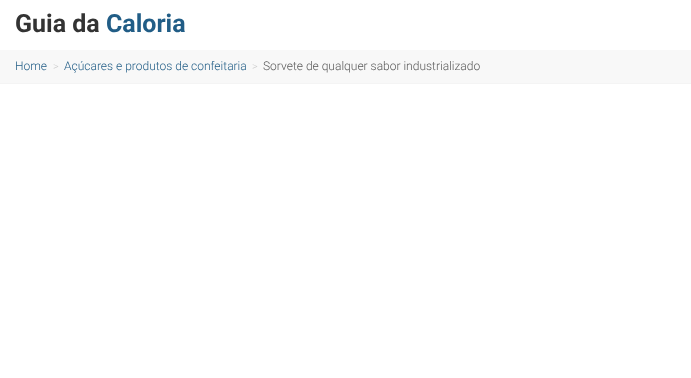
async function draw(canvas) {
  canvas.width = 691
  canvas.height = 378
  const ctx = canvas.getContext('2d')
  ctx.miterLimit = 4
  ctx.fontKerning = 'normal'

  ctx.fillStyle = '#fff'
  ctx.fillRect(0, 0, 691, 378)
  ctx.font = 'bold 25px Roboto'
  ctx.fillStyle = '#333'
  ctx.fillText('Guia da', 15, 32)
  ctx.fillStyle = '#215d86'
  ctx.fillText('Caloria', 106, 32)
  ctx.fillStyle = '#f8f8f8'
  ctx.fillRect(0, 50, 691, 33)
  ctx.fillStyle = '#f4f4f4'
  ctx.fillRect(0, 83, 691, 1)
  ctx.font = '300 12px Roboto'
  ctx.fillStyle = '#215d86'
  ctx.fillText('Home', 15, 70)
  ctx.font = '300 11px Roboto'
  ctx.fillStyle = '#ccc'
  ctx.fillText('>', 53, 70)
  ctx.font = '300 12px Roboto'
  ctx.fillStyle = '#215d86'
  ctx.fillText('Açúcares e produtos de confeitaria', 64, 70)
  ctx.font = '300 11px Roboto'
  ctx.fillStyle = '#ccc'
  ctx.fillText('>', 252, 70)
  ctx.font = '300 12px Roboto'
  ctx.fillStyle = '#595959'
  ctx.fillText('Sorvete de qualquer sabor industrializado', 263, 70)
}

draw(document.querySelector('canvas'))
